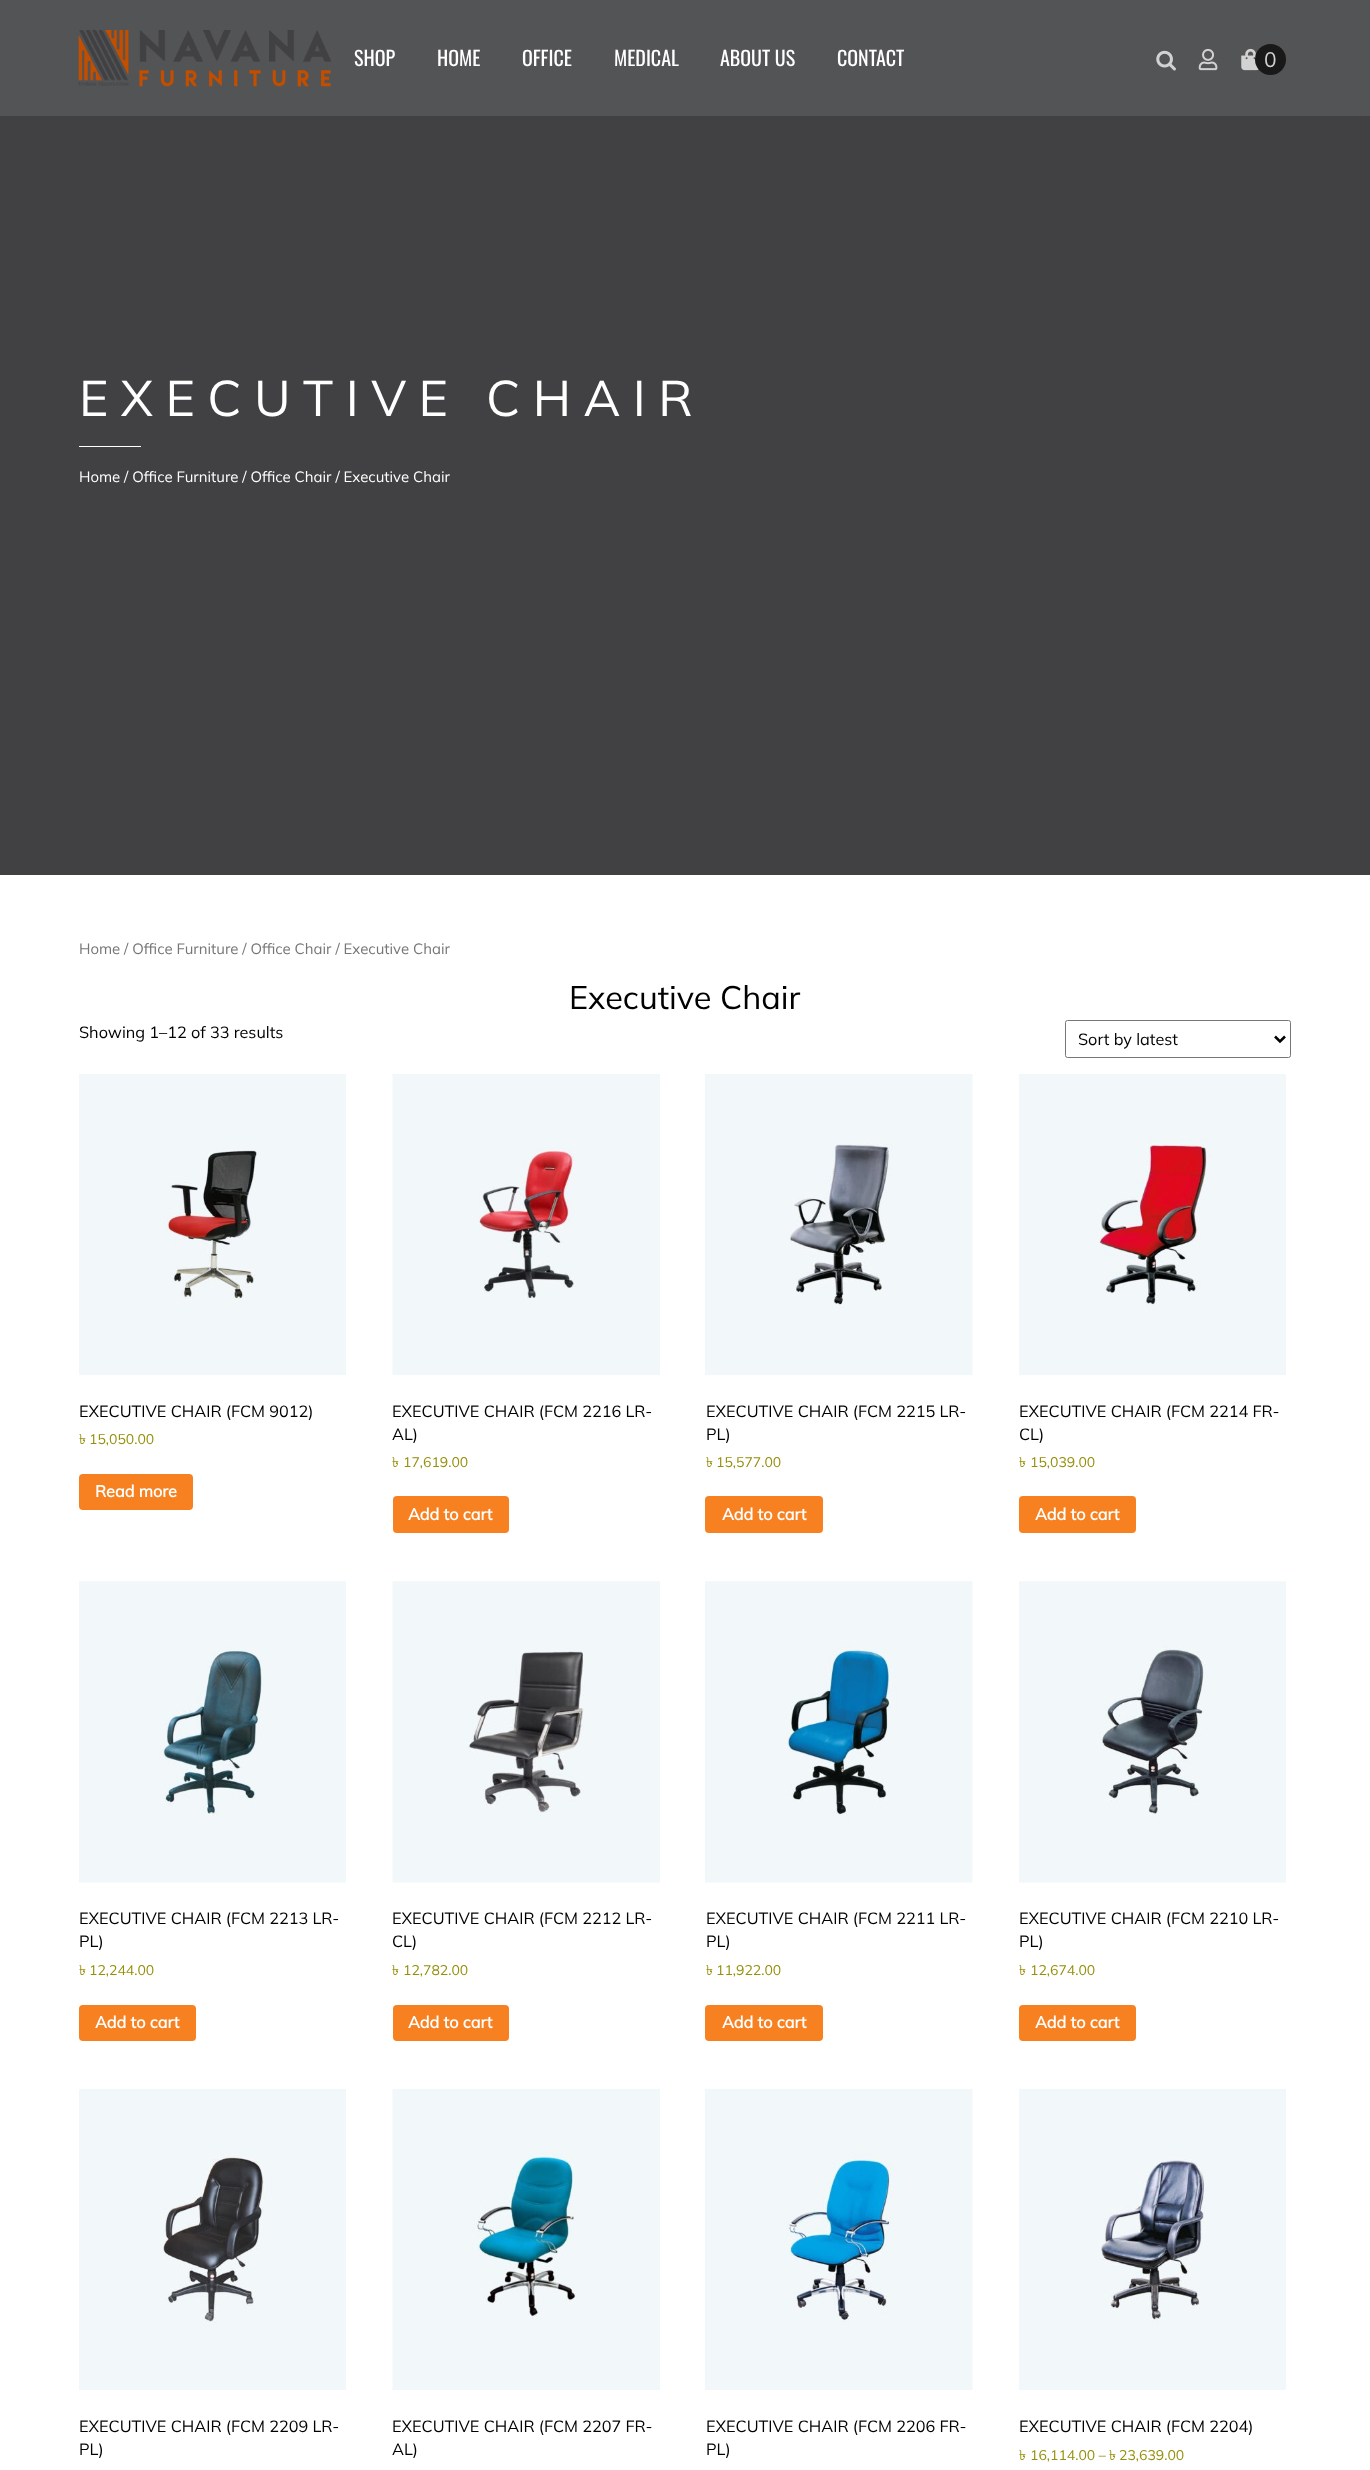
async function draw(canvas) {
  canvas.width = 1370
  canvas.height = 2470
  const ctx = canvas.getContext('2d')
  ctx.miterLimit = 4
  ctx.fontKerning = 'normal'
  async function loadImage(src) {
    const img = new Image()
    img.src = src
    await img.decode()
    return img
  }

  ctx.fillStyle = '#fff'
  ctx.fillRect(0, 0, 1370, 2470)
  ctx.fillStyle = '#535456'
  ctx.fillRect(0, 0, 1370, 116)
  ctx.drawImage(await loadImage('image0.png'), 78, 30, 253, 57)
  ctx.font = '20px Oswald'
  ctx.fillStyle = '#fff'
  ctx.fillText('SHOP', 354, 66)
  ctx.fillText('HOME', 437, 66)
  ctx.fillText('OFFICE', 522, 66)
  ctx.fillText('MEDICAL', 614, 66)
  ctx.fillText('ABOUT US', 720, 66)
  ctx.fillText('CONTACT', 837, 66)
  ctx.drawImage(await loadImage('image1.png'), 1156, 50, 20, 21)
  ctx.drawImage(await loadImage('image2.png'), 1198, 48, 20, 23)
  ctx.drawImage(await loadImage('image3.png'), 1241, 48, 18, 23)
  ctx.fillStyle = '#191919'
  ctx.beginPath()
  ctx.arc(1270.5, 59.5, 15.5, 0, 2 * Math.PI)
  ctx.fill()
  ctx.font = '200 21px Mulish'
  ctx.fillStyle = '#d2d2d2'
  ctx.fillText('0', 1264, 67)
  ctx.fillStyle = '#414143'
  ctx.fillRect(0, 116, 1370, 759)
  ctx.letterSpacing = '12.5px'
  ctx.font = '200 50px Mulish'
  ctx.fillStyle = '#fff'
  ctx.fillText('EXECUTIVE CHAIR', 79, 416)
  ctx.fillRect(79, 446, 62, 1)
  ctx.letterSpacing = '0px'
  ctx.font = '200 14.95px Mulish'
  ctx.fillText('Home / Office Furniture / Office Chair / Executive Chair', 79, 482)
  ctx.fillStyle = '#767676'
  ctx.fillText('Home / Office Furniture / Office Chair / Executive Chair', 79, 954)
  ctx.font = '200 32.5px Mulish'
  ctx.fillStyle = '#000'
  ctx.fillText('Executive Chair', 569, 1009)
  ctx.font = '200 16.25px Mulish'
  ctx.fillText('Showing 1–12 of 33 results', 79, 1038)
  ctx.beginPath()
  ctx.roundRect(1065.5, 1020.5, 225, 37, 2)
  ctx.strokeStyle = '#767676'
  ctx.stroke()
  ctx.beginPath()
  ctx.moveTo(1275, 1036.5)
  ctx.lineTo(1280, 1041.5)
  ctx.lineTo(1285, 1036.5)
  ctx.strokeStyle = '#000'
  ctx.lineWidth = 2.5
  ctx.stroke()
  ctx.fillText('Sort by latest', 1078, 1045)
  ctx.drawImage(await loadImage('image4.png'), 79, 1074, 267, 301)
  ctx.fillText('EXECUTIVE CHAIR (FCM 9012)', 79, 1417)
  ctx.font = '14px Lohit Bengali'
  ctx.fillStyle = '#958e09'
  ctx.fillText('৳', 79, 1444)
  ctx.font = '200 14px Mulish'
  ctx.fillText('15,050.00', 89, 1444)
  ctx.fillStyle = '#f78121'
  ctx.beginPath()
  ctx.roundRect(79, 1474, 114, 36, 4)
  ctx.fill()
  ctx.font = 'bold 16.25px Mulish'
  ctx.fillStyle = '#fff'
  ctx.fillText('Read more', 95, 1497)
  ctx.drawImage(await loadImage('image5.png'), 392, 1074, 268, 301)
  ctx.font = '200 16.25px Mulish'
  ctx.fillStyle = '#000'
  ctx.fillText('EXECUTIVE CHAIR (FCM 2216 LR-', 392, 1417)
  ctx.fillText('AL)', 392, 1440)
  ctx.font = '14px Lohit Bengali'
  ctx.fillStyle = '#958e09'
  ctx.fillText('৳', 392, 1467)
  ctx.font = '200 14px Mulish'
  ctx.fillText('17,619.00', 403, 1467)
  ctx.fillStyle = '#f78121'
  ctx.beginPath()
  ctx.roundRect(393, 1496, 116, 37, 4)
  ctx.fill()
  ctx.font = 'bold 16.25px Mulish'
  ctx.fillStyle = '#fff'
  ctx.fillText('Add to cart', 408, 1520)
  ctx.drawImage(await loadImage('image6.png'), 705, 1074, 268, 301)
  ctx.font = '200 16.25px Mulish'
  ctx.fillStyle = '#000'
  ctx.fillText('EXECUTIVE CHAIR (FCM 2215 LR-', 706, 1417)
  ctx.fillText('PL)', 706, 1440)
  ctx.font = '14px Lohit Bengali'
  ctx.fillStyle = '#958e09'
  ctx.fillText('৳', 706, 1467)
  ctx.font = '200 14px Mulish'
  ctx.fillText('15,577.00', 716, 1467)
  ctx.fillStyle = '#f78121'
  ctx.beginPath()
  ctx.roundRect(705, 1496, 118, 37, 4)
  ctx.fill()
  ctx.font = 'bold 16.25px Mulish'
  ctx.fillStyle = '#fff'
  ctx.fillText('Add to cart', 722, 1520)
  ctx.drawImage(await loadImage('image7.png'), 1019, 1074, 267, 301)
  ctx.font = '200 16.25px Mulish'
  ctx.fillStyle = '#000'
  ctx.fillText('EXECUTIVE CHAIR (FCM 2214 FR-', 1019, 1417)
  ctx.fillText('CL)', 1019, 1440)
  ctx.font = '14px Lohit Bengali'
  ctx.fillStyle = '#958e09'
  ctx.fillText('৳', 1019, 1467)
  ctx.font = '200 14px Mulish'
  ctx.fillText('15,039.00', 1030, 1467)
  ctx.fillStyle = '#f78121'
  ctx.beginPath()
  ctx.roundRect(1019, 1496, 117, 37, 4)
  ctx.fill()
  ctx.font = 'bold 16.25px Mulish'
  ctx.fillStyle = '#fff'
  ctx.fillText('Add to cart', 1035, 1520)
  ctx.drawImage(await loadImage('image8.png'), 79, 1581, 267, 302)
  ctx.font = '200 16.25px Mulish'
  ctx.fillStyle = '#000'
  ctx.fillText('EXECUTIVE CHAIR (FCM 2213 LR-', 79, 1924)
  ctx.fillText('PL)', 79, 1947)
  ctx.font = '14px Lohit Bengali'
  ctx.fillStyle = '#958e09'
  ctx.fillText('৳', 79, 1975)
  ctx.font = '200 14px Mulish'
  ctx.fillText('12,244.00', 89, 1975)
  ctx.fillStyle = '#f78121'
  ctx.beginPath()
  ctx.roundRect(79, 2005, 117, 36, 4)
  ctx.fill()
  ctx.font = 'bold 16.25px Mulish'
  ctx.fillStyle = '#fff'
  ctx.fillText('Add to cart', 95, 2028)
  ctx.drawImage(await loadImage('image9.png'), 392, 1581, 268, 302)
  ctx.font = '200 16.25px Mulish'
  ctx.fillStyle = '#000'
  ctx.fillText('EXECUTIVE CHAIR (FCM 2212 LR-', 392, 1924)
  ctx.fillText('CL)', 392, 1947)
  ctx.font = '14px Lohit Bengali'
  ctx.fillStyle = '#958e09'
  ctx.fillText('৳', 392, 1975)
  ctx.font = '200 14px Mulish'
  ctx.fillText('12,782.00', 403, 1975)
  ctx.fillStyle = '#f78121'
  ctx.beginPath()
  ctx.roundRect(393, 2005, 116, 36, 4)
  ctx.fill()
  ctx.font = 'bold 16.25px Mulish'
  ctx.fillStyle = '#fff'
  ctx.fillText('Add to cart', 408, 2028)
  ctx.drawImage(await loadImage('image10.png'), 705, 1581, 268, 302)
  ctx.font = '200 16.25px Mulish'
  ctx.fillStyle = '#000'
  ctx.fillText('EXECUTIVE CHAIR (FCM 2211 LR-', 706, 1924)
  ctx.fillText('PL)', 706, 1947)
  ctx.font = '14px Lohit Bengali'
  ctx.fillStyle = '#958e09'
  ctx.fillText('৳', 706, 1975)
  ctx.font = '200 14px Mulish'
  ctx.fillText('11,922.00', 716, 1975)
  ctx.fillStyle = '#f78121'
  ctx.beginPath()
  ctx.roundRect(705, 2005, 118, 36, 4)
  ctx.fill()
  ctx.font = 'bold 16.25px Mulish'
  ctx.fillStyle = '#fff'
  ctx.fillText('Add to cart', 722, 2028)
  ctx.drawImage(await loadImage('image11.png'), 1019, 1581, 267, 302)
  ctx.font = '200 16.25px Mulish'
  ctx.fillStyle = '#000'
  ctx.fillText('EXECUTIVE CHAIR (FCM 2210 LR-', 1019, 1924)
  ctx.fillText('PL)', 1019, 1947)
  ctx.font = '14px Lohit Bengali'
  ctx.fillStyle = '#958e09'
  ctx.fillText('৳', 1019, 1975)
  ctx.font = '200 14px Mulish'
  ctx.fillText('12,674.00', 1030, 1975)
  ctx.fillStyle = '#f78121'
  ctx.beginPath()
  ctx.roundRect(1019, 2005, 117, 36, 4)
  ctx.fill()
  ctx.font = 'bold 16.25px Mulish'
  ctx.fillStyle = '#fff'
  ctx.fillText('Add to cart', 1035, 2028)
  ctx.drawImage(await loadImage('image12.png'), 79, 2089, 267, 301)
  ctx.font = '200 16.25px Mulish'
  ctx.fillStyle = '#000'
  ctx.fillText('EXECUTIVE CHAIR (FCM 2209 LR-', 79, 2432)
  ctx.fillText('PL)', 79, 2455)
  ctx.drawImage(await loadImage('image13.png'), 392, 2089, 268, 301)
  ctx.fillText('EXECUTIVE CHAIR (FCM 2207 FR-', 392, 2432)
  ctx.fillText('AL)', 392, 2455)
  ctx.drawImage(await loadImage('image14.png'), 705, 2089, 268, 301)
  ctx.fillText('EXECUTIVE CHAIR (FCM 2206 FR-', 706, 2432)
  ctx.fillText('PL)', 706, 2455)
  ctx.drawImage(await loadImage('image15.png'), 1019, 2089, 267, 301)
  ctx.fillText('EXECUTIVE CHAIR (FCM 2204)', 1019, 2432)
  ctx.font = '14px Lohit Bengali'
  ctx.fillStyle = '#958e09'
  ctx.fillText('৳', 1019, 2460)
  ctx.font = '200 14px Mulish'
  ctx.fillText('16,114.00 –', 1030, 2460)
  ctx.font = '14px Lohit Bengali'
  ctx.fillText('৳', 1109, 2460)
  ctx.font = '200 14px Mulish'
  ctx.fillText('23,639.00', 1119, 2460)
}

draw(document.querySelector('canvas'))
